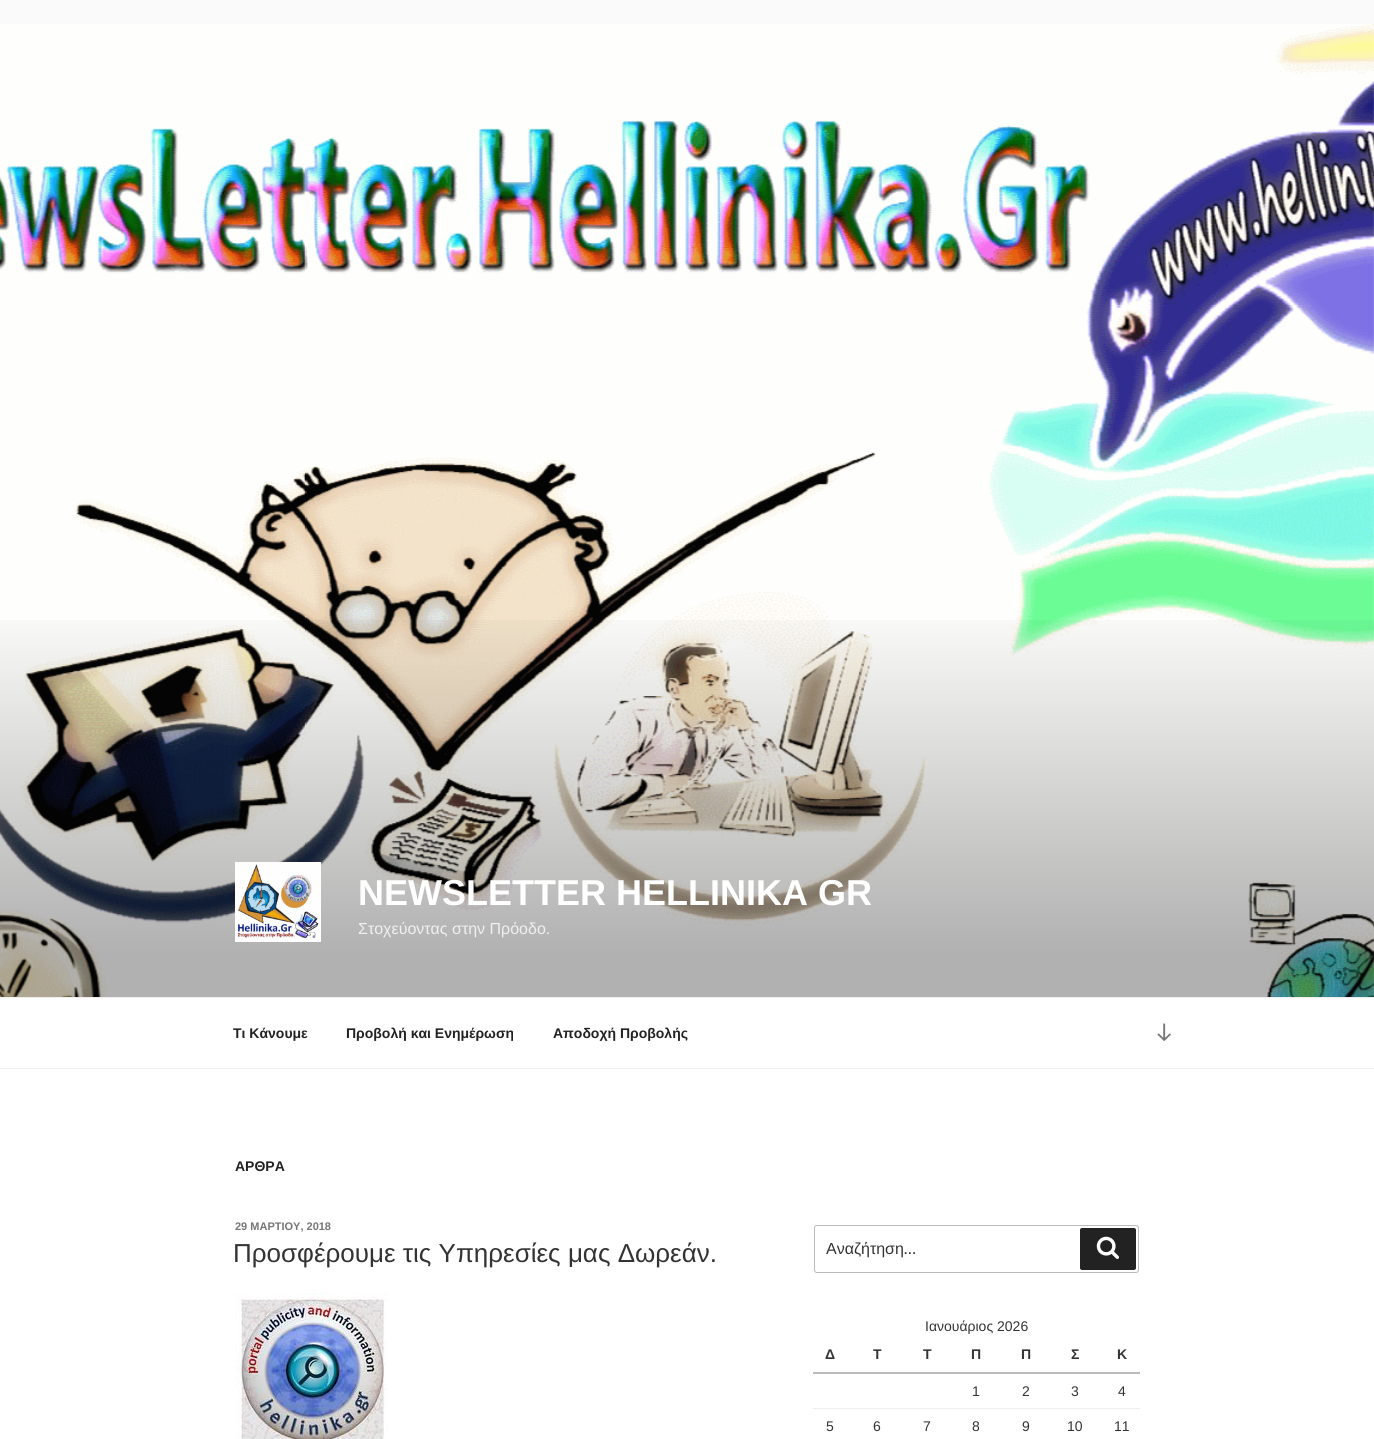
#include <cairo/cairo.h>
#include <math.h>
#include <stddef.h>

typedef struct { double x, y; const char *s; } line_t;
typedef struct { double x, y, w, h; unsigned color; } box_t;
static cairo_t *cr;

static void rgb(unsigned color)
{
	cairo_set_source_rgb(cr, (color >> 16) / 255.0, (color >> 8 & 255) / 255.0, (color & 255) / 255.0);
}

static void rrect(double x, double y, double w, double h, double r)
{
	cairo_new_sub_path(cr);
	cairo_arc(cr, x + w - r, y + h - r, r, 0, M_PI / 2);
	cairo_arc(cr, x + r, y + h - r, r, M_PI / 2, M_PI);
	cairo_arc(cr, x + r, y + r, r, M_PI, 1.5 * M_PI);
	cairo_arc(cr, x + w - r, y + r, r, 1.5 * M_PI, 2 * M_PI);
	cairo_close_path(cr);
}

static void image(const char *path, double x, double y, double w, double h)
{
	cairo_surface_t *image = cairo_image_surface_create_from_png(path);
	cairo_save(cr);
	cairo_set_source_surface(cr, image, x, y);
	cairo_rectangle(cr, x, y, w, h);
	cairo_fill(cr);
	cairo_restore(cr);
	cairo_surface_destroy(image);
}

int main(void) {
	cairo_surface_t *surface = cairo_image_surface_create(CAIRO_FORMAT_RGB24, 1374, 1439);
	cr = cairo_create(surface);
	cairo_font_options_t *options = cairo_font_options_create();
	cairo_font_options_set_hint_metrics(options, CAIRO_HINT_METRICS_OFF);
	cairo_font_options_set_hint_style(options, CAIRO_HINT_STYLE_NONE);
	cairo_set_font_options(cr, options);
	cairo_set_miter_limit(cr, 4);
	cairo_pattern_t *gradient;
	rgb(0xfafafa);
	cairo_paint(cr);
	image("img/1.png", 0, 24, 1374, 973);
	gradient = cairo_pattern_create_linear(687, 594, 687, 1069);
	cairo_pattern_add_color_stop_rgba(gradient, 0, 0, 0, 0, 0);
	cairo_pattern_add_color_stop_rgba(gradient, 0.75, 0, 0, 0, 0.3);
	cairo_pattern_add_color_stop_rgba(gradient, 1, 0, 0, 0, 0.3);
	cairo_set_source(cr, gradient);
	cairo_pattern_destroy(gradient);
	cairo_rectangle(cr, 0, 620, 1374, 377);
	cairo_fill(cr);
	image("img/2.png", 235, 862, 86, 80);
	{
		static const box_t items[] = {
			{0, 998, 1374, 70, 0xffffff},
			{0, 997, 1374, 1, 0xeeeeee},
			{0, 1068, 1374, 1, 0xeeeeee},
		};
		for (size_t i = 0; i < sizeof items / sizeof *items; i++) {
			rgb(items[i].color);
			cairo_rectangle(cr, items[i].x, items[i].y, items[i].w, items[i].h);
			cairo_fill(cr);
		}
	}
	image("img/3.png", 1157, 1023, 14, 18);
	rgb(0xffffff);
	cairo_rectangle(cr, 0, 1069, 1374, 370);
	cairo_fill(cr);
	image("img/4.png", 235, 1293, 152, 146);
	rrect(814.5, 1225.5, 324, 47, 2.5);
	rgb(0xbbbbbb);
	cairo_set_line_width(cr, 1);
	cairo_stroke(cr);
	rgb(0x222222);
	rrect(1080, 1228, 56, 42, 2);
	cairo_fill(cr);
	image("img/5.png", 1096, 1236, 23, 23);
	rgb(0xbbbbbb);
	cairo_rectangle(cr, 813, 1372, 327, 2);
	cairo_fill(cr);
	rgb(0xeeeeee);
	cairo_rectangle(cr, 813, 1408, 327, 1);
	cairo_fill(cr);
	cairo_select_font_face(cr, "Liberation Sans", CAIRO_FONT_SLANT_NORMAL, CAIRO_FONT_WEIGHT_BOLD);
	cairo_set_font_size(cr, 36);
	rgb(0xffffff);
	cairo_move_to(cr, 358, 905);
	cairo_show_text(cr, "NEWSLETTER HELLINIKA GR");
	cairo_select_font_face(cr, "Liberation Sans", CAIRO_FONT_SLANT_NORMAL, CAIRO_FONT_WEIGHT_NORMAL);
	cairo_set_font_size(cr, 16);
	rgb(0xf0f0f0);
	cairo_move_to(cr, 358, 934);
	cairo_show_text(cr, "Στοχεύοντας στην Πρόοδο.");
	cairo_select_font_face(cr, "Liberation Sans", CAIRO_FONT_SLANT_NORMAL, CAIRO_FONT_WEIGHT_BOLD);
	cairo_set_font_size(cr, 14);
	rgb(0x222222);
	{
		static const line_t items[] = {
			{233, 1038, "Τι Κάνουμε"},
			{346, 1038, "Προβολή και Ενημέρωση"},
			{553, 1038, "Αποδοχή Προβολής"},
			{235, 1171, "ΑΡΘΡΑ"},
		};
		for (size_t i = 0; i < sizeof items / sizeof *items; i++) {
			cairo_move_to(cr, items[i].x, items[i].y);
			cairo_show_text(cr, items[i].s);
		}
	}
	cairo_set_font_size(cr, 11);
	rgb(0x767676);
	cairo_move_to(cr, 235, 1230);
	cairo_show_text(cr, "29 ΜΑΡΤΙΟΥ, 2018");
	cairo_select_font_face(cr, "Liberation Sans", CAIRO_FONT_SLANT_NORMAL, CAIRO_FONT_WEIGHT_NORMAL);
	cairo_set_font_size(cr, 26);
	rgb(0x333333);
	cairo_move_to(cr, 233, 1262);
	cairo_show_text(cr, "Προσφέρουμε τις Υπηρεσίες μας Δωρεάν.");
	cairo_set_font_size(cr, 16);
	cairo_move_to(cr, 826, 1254);
	cairo_show_text(cr, "Αναζήτηση");
	cairo_select_font_face(cr, "Libre Franklin", CAIRO_FONT_SLANT_NORMAL, CAIRO_FONT_WEIGHT_NORMAL);
	cairo_move_to(cr, 904, 1254);
	cairo_show_text(cr, "…");
	cairo_select_font_face(cr, "Liberation Sans", CAIRO_FONT_SLANT_NORMAL, CAIRO_FONT_WEIGHT_NORMAL);
	cairo_set_font_size(cr, 14);
	cairo_move_to(cr, 925, 1331);
	cairo_show_text(cr, "Ιανουάριος 2026");
	cairo_select_font_face(cr, "Liberation Sans", CAIRO_FONT_SLANT_NORMAL, CAIRO_FONT_WEIGHT_BOLD);
	{
		static const line_t items[] = {
			{825, 1359, "Δ"},
			{873, 1359, "Τ"},
			{923, 1359, "Τ"},
			{971, 1359, "Π"},
			{1021, 1359, "Π"},
			{1071, 1359, "Σ"},
			{1117, 1359, "Κ"},
		};
		for (size_t i = 0; i < sizeof items / sizeof *items; i++) {
			cairo_move_to(cr, items[i].x, items[i].y);
			cairo_show_text(cr, items[i].s);
		}
	}
	cairo_select_font_face(cr, "Liberation Sans", CAIRO_FONT_SLANT_NORMAL, CAIRO_FONT_WEIGHT_NORMAL);
	{
		static const line_t items[] = {
			{972, 1396, "1"},
			{1022, 1396, "2"},
			{1071, 1396, "3"},
			{1118, 1396, "4"},
			{826, 1431, "5"},
			{873, 1431, "6"},
			{923, 1431, "7"},
			{972, 1431, "8"},
			{1022, 1431, "9"},
			{1067, 1431, "10"},
			{1114, 1431, "11"},
		};
		for (size_t i = 0; i < sizeof items / sizeof *items; i++) {
			cairo_move_to(cr, items[i].x, items[i].y);
			cairo_show_text(cr, items[i].s);
		}
	}
	cairo_surface_write_to_png(surface, "page.png");
	cairo_font_options_destroy(options);
	cairo_destroy(cr);
	cairo_surface_destroy(surface);
	return 0;
}
